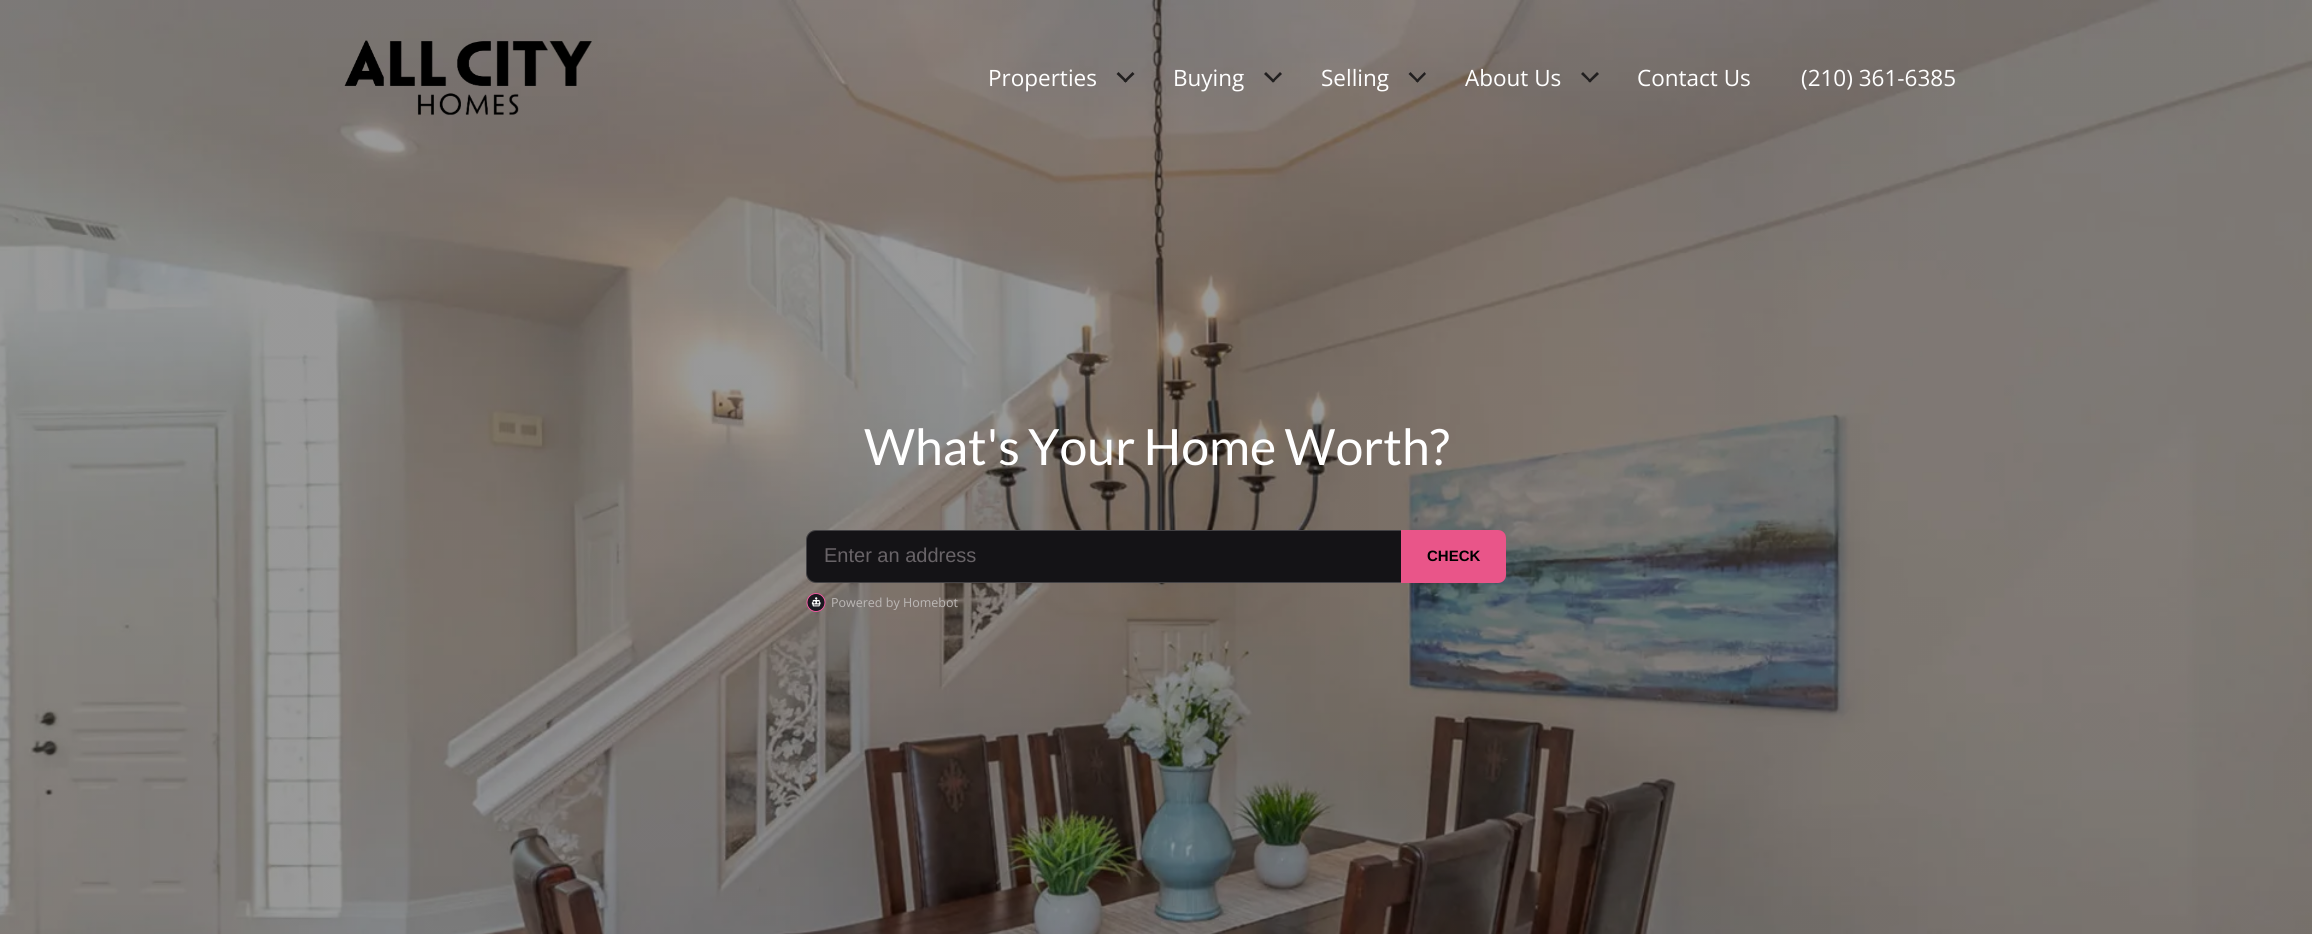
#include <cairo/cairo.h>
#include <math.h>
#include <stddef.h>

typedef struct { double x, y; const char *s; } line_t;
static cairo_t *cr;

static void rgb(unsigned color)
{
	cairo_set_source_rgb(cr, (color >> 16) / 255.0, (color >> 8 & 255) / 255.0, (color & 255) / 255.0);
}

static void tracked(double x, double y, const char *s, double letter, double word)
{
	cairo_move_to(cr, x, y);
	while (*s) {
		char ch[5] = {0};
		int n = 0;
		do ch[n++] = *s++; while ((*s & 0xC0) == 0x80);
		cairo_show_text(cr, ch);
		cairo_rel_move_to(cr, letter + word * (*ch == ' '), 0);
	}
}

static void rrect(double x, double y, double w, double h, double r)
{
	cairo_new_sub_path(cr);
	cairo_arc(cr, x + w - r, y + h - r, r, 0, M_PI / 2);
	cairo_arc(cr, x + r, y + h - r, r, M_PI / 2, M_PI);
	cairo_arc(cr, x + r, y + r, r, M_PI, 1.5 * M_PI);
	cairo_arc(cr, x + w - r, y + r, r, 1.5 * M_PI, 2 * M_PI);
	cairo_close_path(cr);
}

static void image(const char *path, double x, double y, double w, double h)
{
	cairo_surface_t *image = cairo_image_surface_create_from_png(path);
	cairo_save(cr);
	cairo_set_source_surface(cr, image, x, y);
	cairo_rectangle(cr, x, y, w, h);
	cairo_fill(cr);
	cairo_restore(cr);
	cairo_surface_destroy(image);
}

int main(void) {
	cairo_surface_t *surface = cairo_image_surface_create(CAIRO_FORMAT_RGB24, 2312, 934);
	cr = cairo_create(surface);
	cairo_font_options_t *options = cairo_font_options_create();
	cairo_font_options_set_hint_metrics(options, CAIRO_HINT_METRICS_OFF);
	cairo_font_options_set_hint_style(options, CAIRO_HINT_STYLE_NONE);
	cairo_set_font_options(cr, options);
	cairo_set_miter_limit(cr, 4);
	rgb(0xffffff);
	cairo_paint(cr);
	image("img/2.png", 0, 0, 2312, 934);
	image("img/1.png", 344, 40, 248, 75);
	rgb(0x211f1f);
	cairo_new_path(cr);
	cairo_move_to(cr, 1132.5, 72);
	cairo_line_to(cr, 1134.5, 74);
	cairo_line_to(cr, 1125.5, 82.5);
	cairo_line_to(cr, 1123.5, 81);
	cairo_close_path(cr);
	cairo_fill(cr);
	cairo_new_path(cr);
	cairo_move_to(cr, 1118.5, 72);
	cairo_line_to(cr, 1127.5, 81);
	cairo_line_to(cr, 1125.5, 82.5);
	cairo_line_to(cr, 1116.5, 74);
	cairo_close_path(cr);
	cairo_fill(cr);
	cairo_new_path(cr);
	cairo_move_to(cr, 1280, 72);
	cairo_line_to(cr, 1282, 74);
	cairo_line_to(cr, 1273, 82.5);
	cairo_line_to(cr, 1271.5, 81);
	cairo_close_path(cr);
	cairo_fill(cr);
	cairo_new_path(cr);
	cairo_move_to(cr, 1266, 72);
	cairo_line_to(cr, 1275, 81);
	cairo_line_to(cr, 1273, 82.5);
	cairo_line_to(cr, 1264, 74);
	cairo_close_path(cr);
	cairo_fill(cr);
	cairo_new_path(cr);
	cairo_move_to(cr, 1424.5, 72);
	cairo_line_to(cr, 1426, 74);
	cairo_line_to(cr, 1417.5, 82.5);
	cairo_line_to(cr, 1415.5, 81);
	cairo_close_path(cr);
	cairo_fill(cr);
	cairo_new_path(cr);
	cairo_move_to(cr, 1410.5, 72);
	cairo_line_to(cr, 1419, 81);
	cairo_line_to(cr, 1417.5, 82.5);
	cairo_line_to(cr, 1408.5, 74);
	cairo_close_path(cr);
	cairo_fill(cr);
	cairo_new_path(cr);
	cairo_move_to(cr, 1597, 72);
	cairo_line_to(cr, 1599, 74);
	cairo_line_to(cr, 1590, 82.5);
	cairo_line_to(cr, 1588, 81);
	cairo_close_path(cr);
	cairo_fill(cr);
	cairo_new_path(cr);
	cairo_move_to(cr, 1583, 72);
	cairo_line_to(cr, 1591.5, 81);
	cairo_line_to(cr, 1590, 82.5);
	cairo_line_to(cr, 1581, 74);
	cairo_close_path(cr);
	cairo_fill(cr);
	rgb(0x141316);
	rrect(806, 530, 700, 53, 10);
	cairo_fill(cr);
	rrect(806.5, 530.5, 699, 52, 9.5);
	cairo_set_source_rgba(cr, 1, 1, 1, 0.2);
	cairo_set_line_width(cr, 1);
	cairo_stroke(cr);
	rgb(0xe95589);
	cairo_new_path(cr);
	cairo_move_to(cr, 1401, 530);
	cairo_line_to(cr, 1498, 530);
	cairo_curve_to(cr, 1502.5, 530, 1506, 533.5, 1506, 538);
	cairo_line_to(cr, 1506, 575);
	cairo_curve_to(cr, 1506, 579.5, 1502.5, 583, 1498, 583);
	cairo_line_to(cr, 1401, 583);
	cairo_close_path(cr);
	cairo_fill(cr);
	image("img/3.png", 806, 593, 20, 19);
	cairo_select_font_face(cr, "Open Sans", CAIRO_FONT_SLANT_NORMAL, CAIRO_FONT_WEIGHT_NORMAL);
	cairo_set_font_size(cr, 22.5);
	rgb(0xffffff);
	{
		static const line_t items[] = {
			{988, 86, "Properties"},
			{1173, 86, "Buying"},
			{1321, 86, "Selling"},
			{1465, 86, "About Us"},
			{1637, 86, "Contact Us"},
			{1801, 86, "(210) 361-6385"},
		};
		for (size_t i = 0; i < sizeof items / sizeof *items; i++) {
			cairo_move_to(cr, items[i].x, items[i].y);
			cairo_show_text(cr, items[i].s);
		}
	}
	cairo_select_font_face(cr, "Lato", CAIRO_FONT_SLANT_NORMAL, CAIRO_FONT_WEIGHT_NORMAL);
	cairo_set_font_size(cr, 50);
	tracked(864, 465, "What's Your Home Worth?", 0, -1.5);
	cairo_select_font_face(cr, "Liberation Sans", CAIRO_FONT_SLANT_NORMAL, CAIRO_FONT_WEIGHT_NORMAL);
	cairo_set_font_size(cr, 20);
	rgb(0x686367);
	cairo_move_to(cr, 824, 562);
	cairo_show_text(cr, "Enter an address");
	cairo_select_font_face(cr, "Liberation Sans", CAIRO_FONT_SLANT_NORMAL, CAIRO_FONT_WEIGHT_BOLD);
	cairo_set_font_size(cr, 15);
	rgb(0x000000);
	cairo_move_to(cr, 1427, 561);
	cairo_show_text(cr, "CHECK");
	cairo_select_font_face(cr, "Open Sans", CAIRO_FONT_SLANT_NORMAL, CAIRO_FONT_WEIGHT_NORMAL);
	cairo_set_font_size(cr, 12.5);
	rgb(0xbcb8b6);
	cairo_move_to(cr, 831, 607);
	cairo_show_text(cr, "Powered by");
	cairo_move_to(cr, 903, 607);
	cairo_show_text(cr, "Homebot");
	cairo_surface_write_to_png(surface, "page.png");
	cairo_font_options_destroy(options);
	cairo_destroy(cr);
	cairo_surface_destroy(surface);
	return 0;
}
